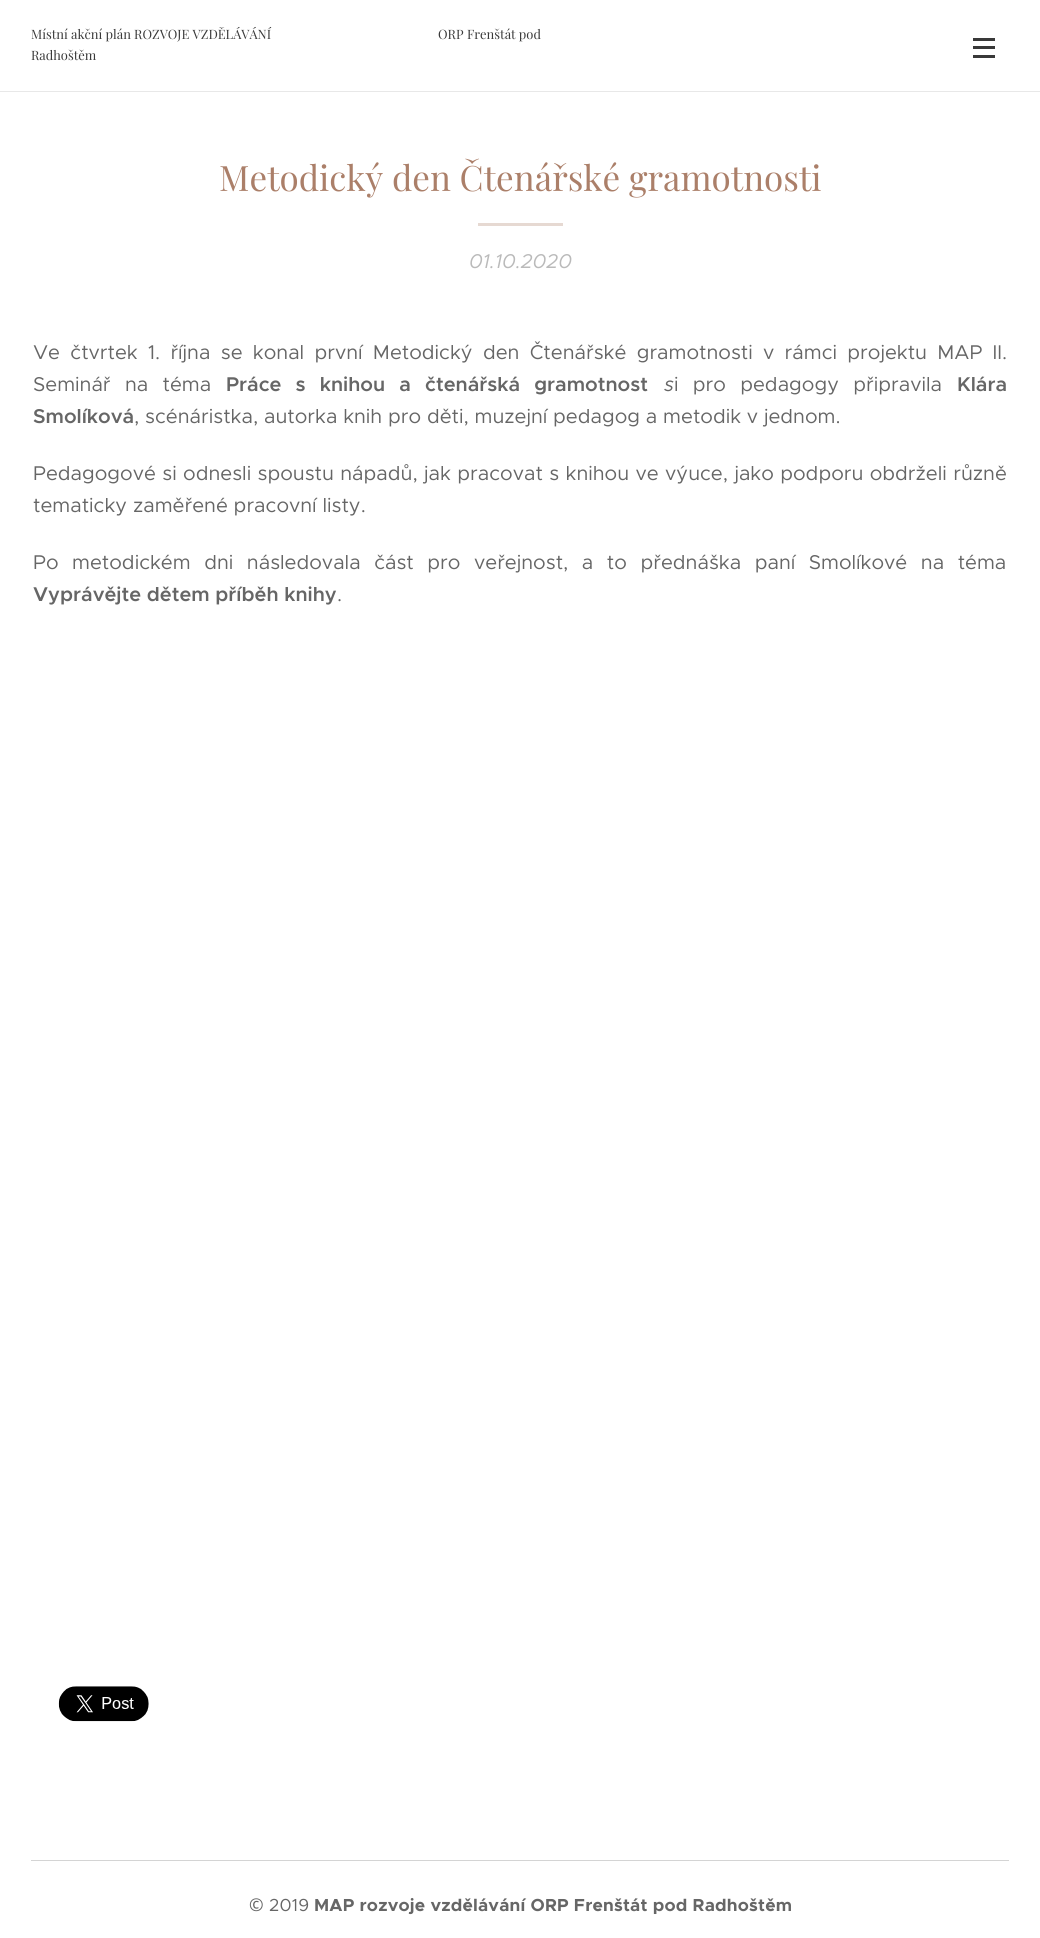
#include <cairo/cairo.h>
#include <math.h>
#include <stddef.h>

typedef struct { double x, y; const char *s; } line_t;
typedef struct { double x, y, w, h; unsigned color; } box_t;
static cairo_t *cr;

static void rgb(unsigned color)
{
	cairo_set_source_rgb(cr, (color >> 16) / 255.0, (color >> 8 & 255) / 255.0, (color & 255) / 255.0);
}

static void tracked(double x, double y, const char *s, double letter, double word)
{
	cairo_move_to(cr, x, y);
	while (*s) {
		char ch[5] = {0};
		int n = 0;
		do ch[n++] = *s++; while ((*s & 0xC0) == 0x80);
		cairo_show_text(cr, ch);
		cairo_rel_move_to(cr, letter + word * (*ch == ' '), 0);
	}
}

static void image(const char *path, double x, double y, double w, double h)
{
	cairo_surface_t *image = cairo_image_surface_create_from_png(path);
	cairo_save(cr);
	cairo_set_source_surface(cr, image, x, y);
	cairo_rectangle(cr, x, y, w, h);
	cairo_fill(cr);
	cairo_restore(cr);
	cairo_surface_destroy(image);
}

int main(void) {
	cairo_surface_t *surface = cairo_image_surface_create(CAIRO_FORMAT_RGB24, 1040, 1938);
	cr = cairo_create(surface);
	cairo_font_options_t *options = cairo_font_options_create();
	cairo_font_options_set_hint_metrics(options, CAIRO_HINT_METRICS_OFF);
	cairo_font_options_set_hint_style(options, CAIRO_HINT_STYLE_NONE);
	cairo_set_font_options(cr, options);
	cairo_set_miter_limit(cr, 4);
	rgb(0xffffff);
	cairo_paint(cr);
	{
		static const box_t items[] = {
			{973, 46, 22, 3, 0x393939},
			{973, 38, 22, 3, 0x393939},
			{973, 55, 22, 3, 0x393939},
			{0, 91, 1040, 1, 0xe8e8e8},
			{478, 223, 85, 3, 0xe6d9d2},
		};
		for (size_t i = 0; i < sizeof items / sizeof *items; i++) {
			rgb(items[i].color);
			cairo_rectangle(cr, items[i].x, items[i].y, items[i].w, items[i].h);
			cairo_fill(cr);
		}
	}
	image("img/1.png", 58, 1686, 91, 36);
	rgb(0xd4d4d4);
	cairo_rectangle(cr, 31, 1860, 978, 1);
	cairo_fill(cr);
	cairo_select_font_face(cr, "Playfair Display", CAIRO_FONT_SLANT_NORMAL, CAIRO_FONT_WEIGHT_NORMAL);
	cairo_set_font_size(cr, 12.9);
	rgb(0x393939);
	{
		static const line_t items[] = {
			{31, 39, "Místní akční plán ROZVOJE VZDĚLÁVÁNÍ                                                    ORP"},
			{467, 39, "Frenštát pod"},
			{31, 60, "Radhoštěm"},
		};
		for (size_t i = 0; i < sizeof items / sizeof *items; i++) {
			cairo_move_to(cr, items[i].x, items[i].y);
			cairo_show_text(cr, items[i].s);
		}
	}
	cairo_set_font_size(cr, 35);
	rgb(0xab7f69);
	cairo_move_to(cr, 219, 191);
	cairo_show_text(cr, "Metodický den Čtenářské gramotnosti");
	cairo_select_font_face(cr, "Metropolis", CAIRO_FONT_SLANT_ITALIC, CAIRO_FONT_WEIGHT_NORMAL);
	cairo_set_font_size(cr, 20);
	rgb(0xbababa);
	cairo_move_to(cr, 469, 268);
	cairo_show_text(cr, "01.10.2020");
	cairo_select_font_face(cr, "Metropolis", CAIRO_FONT_SLANT_NORMAL, CAIRO_FONT_WEIGHT_NORMAL);
	rgb(0x666666);
	tracked(33, 359, "Ve čtvrtek 1. října se konal první Metodický den Čtenářské gramotnosti v rámci projektu MAP II.", 0, 4.5);
	tracked(33, 391, "Seminář na téma", 0, 8.5);
	cairo_select_font_face(cr, "Metropolis SemiBold", CAIRO_FONT_SLANT_NORMAL, CAIRO_FONT_WEIGHT_NORMAL);
	tracked(226, 391, "Práce s knihou a čtenářská gramotnost", 0, 8.5);
	cairo_select_font_face(cr, "Metropolis", CAIRO_FONT_SLANT_ITALIC, CAIRO_FONT_WEIGHT_NORMAL);
	cairo_move_to(cr, 664, 391);
	cairo_show_text(cr, "s");
	cairo_select_font_face(cr, "Metropolis", CAIRO_FONT_SLANT_NORMAL, CAIRO_FONT_WEIGHT_NORMAL);
	tracked(674, 391, "i pro pedagogy připravila", 0, 8.5);
	cairo_select_font_face(cr, "Metropolis SemiBold", CAIRO_FONT_SLANT_NORMAL, CAIRO_FONT_WEIGHT_NORMAL);
	cairo_move_to(cr, 957, 391);
	cairo_show_text(cr, "Klára");
	cairo_move_to(cr, 33, 423);
	cairo_show_text(cr, "Smolíková");
	cairo_select_font_face(cr, "Metropolis", CAIRO_FONT_SLANT_NORMAL, CAIRO_FONT_WEIGHT_NORMAL);
	cairo_move_to(cr, 134, 423);
	cairo_show_text(cr, ", scénáristka, autorka knih pro děti, muzejní pedagog a metodik v jednom.");
	tracked(33, 480, "Pedagogové si odnesli spoustu nápadů, jak pracovat s knihou ve výuce, jako podporu obdrželi různě", 0, 0.6);
	cairo_move_to(cr, 33, 512);
	cairo_show_text(cr, "tematicky zaměřené pracovní listy.");
	tracked(33, 569, "Po metodickém dni následovala část pro veřejnost, a to přednáška paní Smolíkové na téma", 0, 7.75);
	cairo_select_font_face(cr, "Metropolis SemiBold", CAIRO_FONT_SLANT_NORMAL, CAIRO_FONT_WEIGHT_NORMAL);
	cairo_move_to(cr, 33, 601);
	cairo_show_text(cr, "Vyprávějte dětem příběh knihy");
	cairo_select_font_face(cr, "Metropolis", CAIRO_FONT_SLANT_NORMAL, CAIRO_FONT_WEIGHT_NORMAL);
	cairo_move_to(cr, 337, 601);
	cairo_show_text(cr, ".");
	cairo_select_font_face(cr, "Noto Sans", CAIRO_FONT_SLANT_NORMAL, CAIRO_FONT_WEIGHT_NORMAL);
	cairo_set_font_size(cr, 17.5);
	tracked(249, 1911, "©", 0.2, 0);
	cairo_select_font_face(cr, "Metropolis", CAIRO_FONT_SLANT_NORMAL, CAIRO_FONT_WEIGHT_NORMAL);
	tracked(269, 1911, "2019", 0.2, 0);
	cairo_select_font_face(cr, "Metropolis", CAIRO_FONT_SLANT_NORMAL, CAIRO_FONT_WEIGHT_BOLD);
	tracked(314, 1911, "MAP rozvoje vzdělávání ORP Frenštát pod Radhoštěm", 0.2, 0);
	cairo_surface_write_to_png(surface, "page.png");
	cairo_font_options_destroy(options);
	cairo_destroy(cr);
	cairo_surface_destroy(surface);
	return 0;
}
